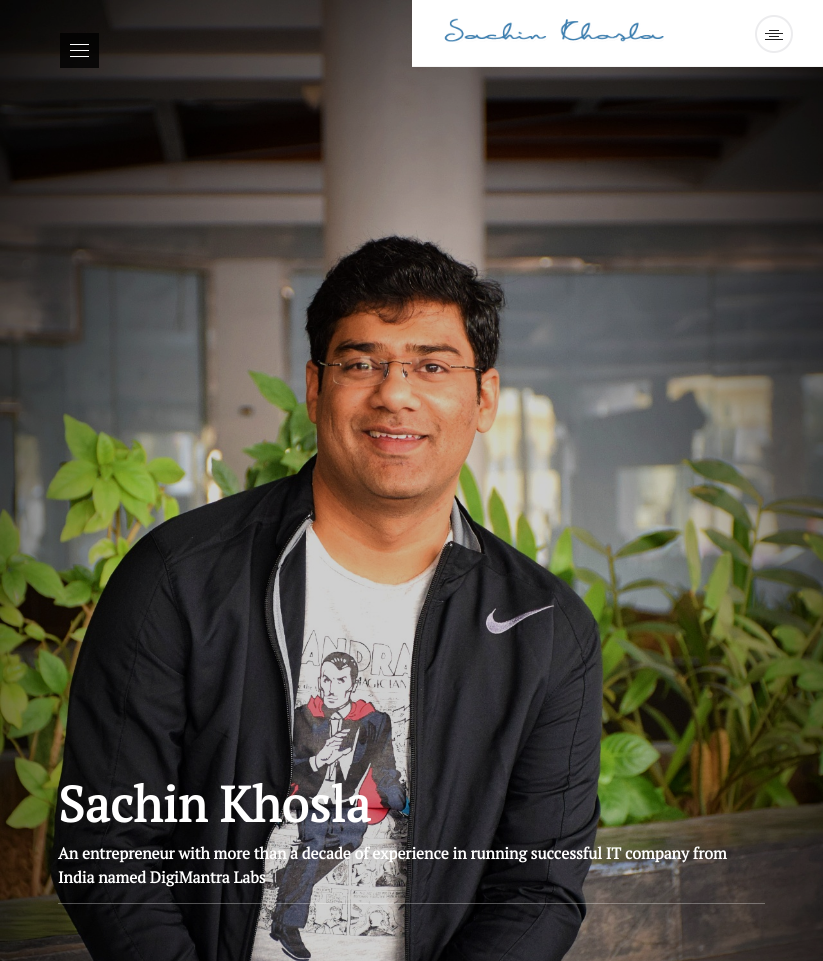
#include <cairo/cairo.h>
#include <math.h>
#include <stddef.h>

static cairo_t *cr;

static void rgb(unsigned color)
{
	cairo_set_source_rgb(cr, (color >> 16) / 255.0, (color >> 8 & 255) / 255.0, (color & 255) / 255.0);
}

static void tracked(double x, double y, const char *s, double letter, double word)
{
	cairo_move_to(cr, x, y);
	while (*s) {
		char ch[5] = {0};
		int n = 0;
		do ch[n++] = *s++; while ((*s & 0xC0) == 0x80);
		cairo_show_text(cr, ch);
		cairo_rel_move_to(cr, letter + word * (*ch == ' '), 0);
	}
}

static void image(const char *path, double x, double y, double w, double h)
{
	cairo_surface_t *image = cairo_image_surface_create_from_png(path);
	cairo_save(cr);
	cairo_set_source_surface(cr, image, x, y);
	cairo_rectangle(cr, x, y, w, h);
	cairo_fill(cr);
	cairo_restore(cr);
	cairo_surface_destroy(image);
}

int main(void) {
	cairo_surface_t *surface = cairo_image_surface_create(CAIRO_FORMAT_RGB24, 823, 961);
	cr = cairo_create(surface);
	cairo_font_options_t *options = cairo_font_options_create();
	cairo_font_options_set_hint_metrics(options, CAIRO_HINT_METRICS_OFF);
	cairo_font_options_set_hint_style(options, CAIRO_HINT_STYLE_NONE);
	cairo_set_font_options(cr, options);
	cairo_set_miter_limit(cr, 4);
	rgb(0xffffff);
	cairo_paint(cr);
	image("img/2.png", 0, 0, 823, 961);
	rgb(0xffffff);
	cairo_rectangle(cr, 412, 0, 411, 66);
	cairo_fill(cr);
	rgb(0xf5f5f5);
	cairo_rectangle(cr, 412, 66, 411, 1);
	cairo_fill(cr);
	image("img/1.png", 444, 18, 220, 25);
	cairo_arc(cr, 774, 34, 18, 0, 2 * M_PI);
	rgb(0xececee);
	cairo_stroke(cr);
	rgb(0x232323);
	cairo_rectangle(cr, 769, 30, 10, 1);
	cairo_fill(cr);
	cairo_rectangle(cr, 765, 33, 18, 1);
	cairo_fill(cr);
	cairo_rectangle(cr, 769, 36, 10, 1);
	cairo_fill(cr);
	cairo_rectangle(cr, 765, 39, 18, 1);
	cairo_fill(cr);
	cairo_set_source_rgba(cr, 0, 0, 0, 0.8);
	cairo_rectangle(cr, 60, 33, 39, 35);
	cairo_fill(cr);
	rgb(0xffffff);
	cairo_rectangle(cr, 70, 44, 19, 1);
	cairo_fill(cr);
	cairo_rectangle(cr, 70, 50, 19, 1);
	cairo_fill(cr);
	cairo_rectangle(cr, 70, 56, 19, 1);
	cairo_fill(cr);
	cairo_set_source_rgba(cr, 1, 1, 1, 0.3);
	cairo_rectangle(cr, 58, 903, 707, 1);
	cairo_fill(cr);
	cairo_select_font_face(cr, "PT Serif", CAIRO_FONT_SLANT_NORMAL, CAIRO_FONT_WEIGHT_BOLD);
	cairo_set_font_size(cr, 50);
	rgb(0xffffff);
	cairo_move_to(cr, 58, 822);
	cairo_show_text(cr, "Sachin Khosla");
	cairo_set_font_size(cr, 16);
	tracked(58, 859, "An entrepreneur with more than a decade of experience in running successful IT company from", -0.1, 0);
	tracked(58, 883, "India named DigiMantra Labs", -0.1, 0);
	cairo_surface_write_to_png(surface, "page.png");
	cairo_font_options_destroy(options);
	cairo_destroy(cr);
	cairo_surface_destroy(surface);
	return 0;
}
